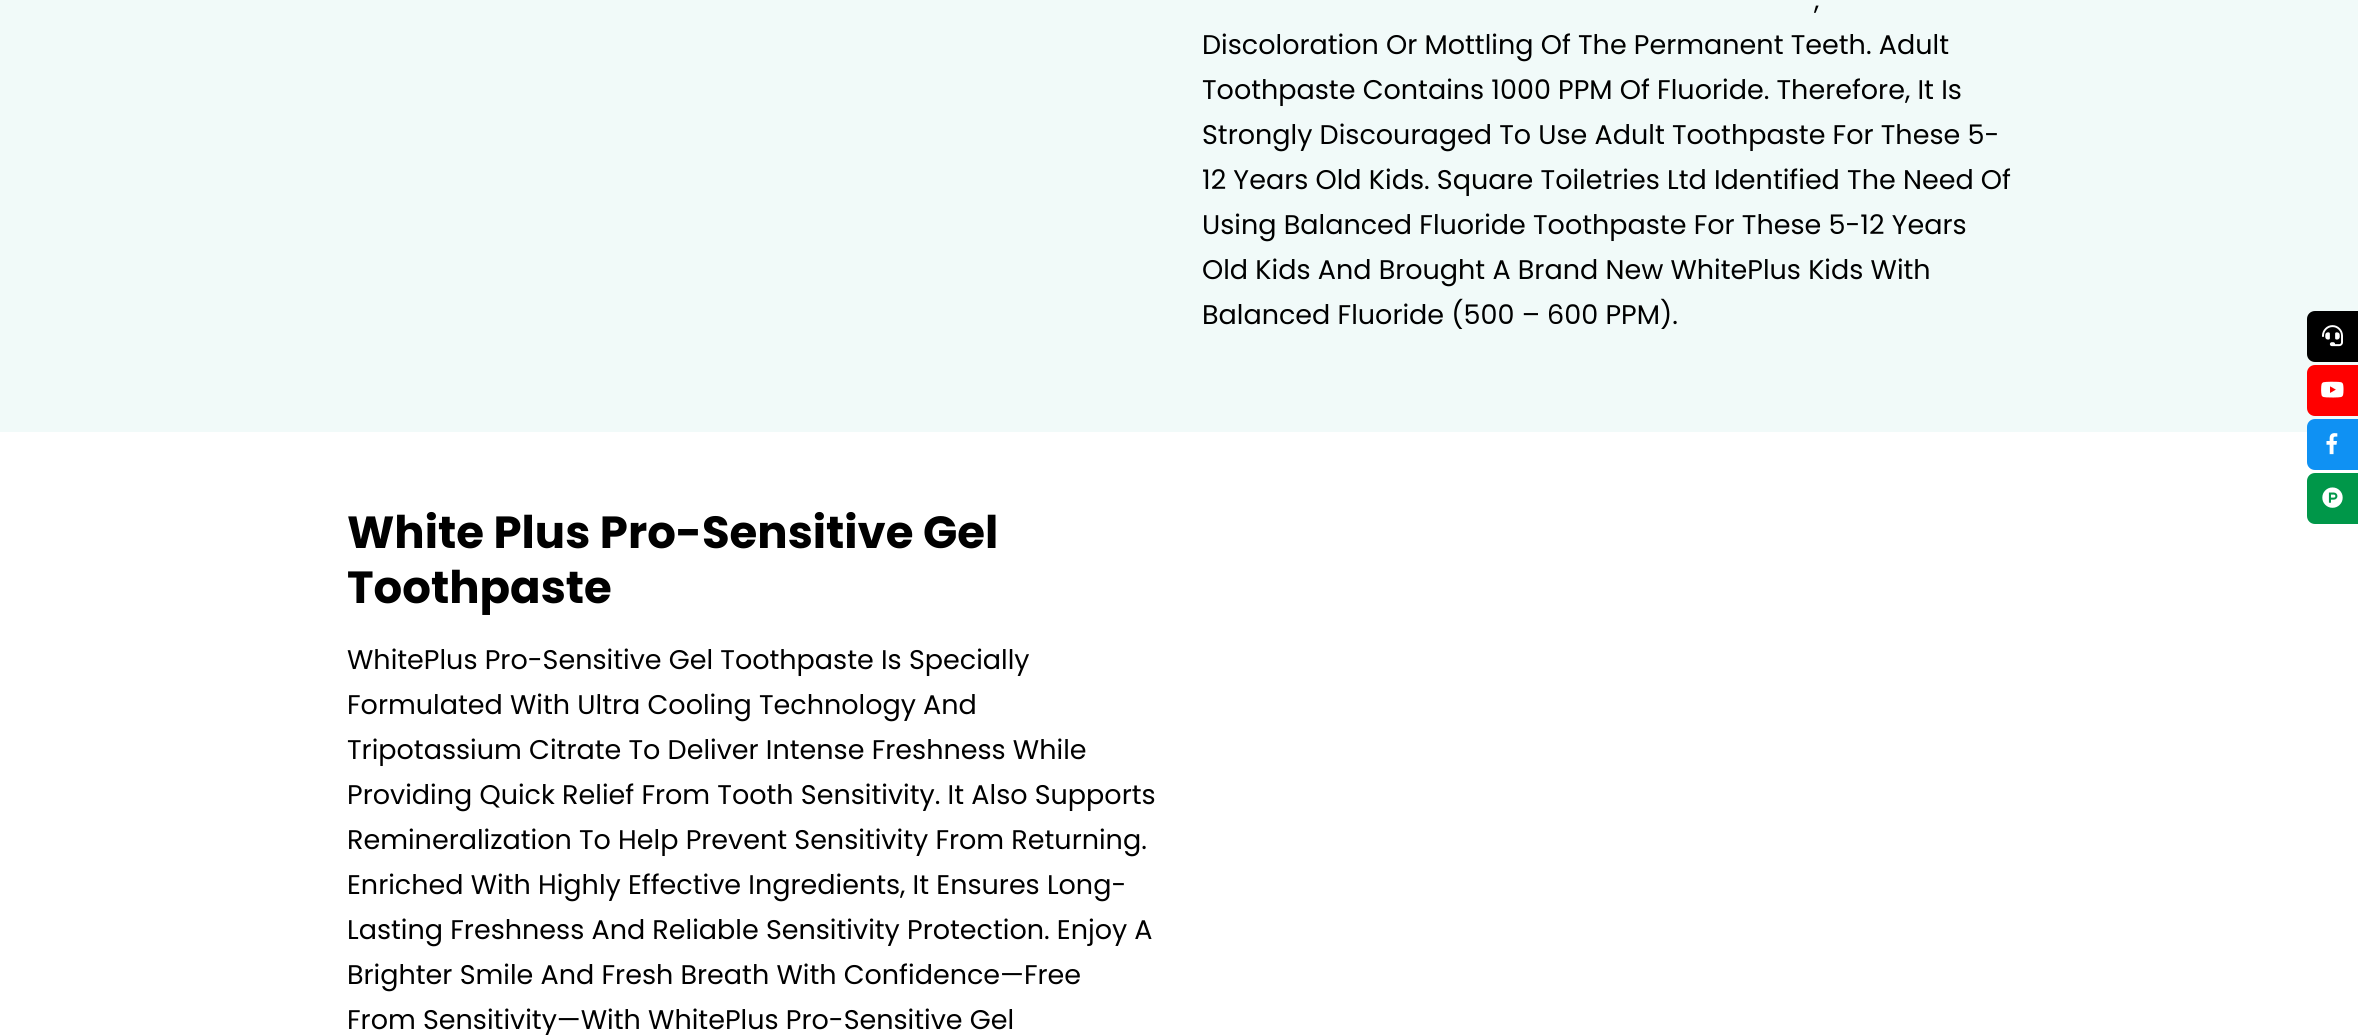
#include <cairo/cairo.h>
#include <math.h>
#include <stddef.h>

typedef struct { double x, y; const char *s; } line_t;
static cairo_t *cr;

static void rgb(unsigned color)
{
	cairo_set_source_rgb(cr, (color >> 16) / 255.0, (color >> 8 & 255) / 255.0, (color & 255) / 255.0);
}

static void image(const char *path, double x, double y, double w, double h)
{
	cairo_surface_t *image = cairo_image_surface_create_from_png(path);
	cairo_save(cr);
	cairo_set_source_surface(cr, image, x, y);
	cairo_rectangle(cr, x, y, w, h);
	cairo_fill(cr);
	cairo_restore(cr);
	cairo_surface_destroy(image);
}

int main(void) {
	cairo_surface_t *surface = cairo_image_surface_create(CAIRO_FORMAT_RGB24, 2358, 1035);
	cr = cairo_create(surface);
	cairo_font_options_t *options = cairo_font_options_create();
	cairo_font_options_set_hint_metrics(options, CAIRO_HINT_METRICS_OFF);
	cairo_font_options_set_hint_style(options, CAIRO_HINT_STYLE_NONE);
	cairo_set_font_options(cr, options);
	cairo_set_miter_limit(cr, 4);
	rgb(0xffffff);
	cairo_paint(cr);
	rgb(0xf1faf9);
	cairo_rectangle(cr, 0, 0, 2358, 432);
	cairo_fill(cr);
	rgb(0x000000);
	cairo_new_path(cr);
	cairo_move_to(cr, 2315, 311);
	cairo_line_to(cr, 2358, 311);
	cairo_line_to(cr, 2358, 362);
	cairo_line_to(cr, 2315, 362);
	cairo_curve_to(cr, 2310.5, 362, 2307, 358.5, 2307, 354);
	cairo_line_to(cr, 2307, 319);
	cairo_curve_to(cr, 2307, 314.5, 2310.5, 311, 2315, 311);
	cairo_close_path(cr);
	cairo_fill(cr);
	image("img/1.png", 2322, 325, 21, 22);
	rgb(0xff0000);
	cairo_new_path(cr);
	cairo_move_to(cr, 2315, 365);
	cairo_line_to(cr, 2358, 365);
	cairo_line_to(cr, 2358, 416);
	cairo_line_to(cr, 2315, 416);
	cairo_curve_to(cr, 2310.5, 416, 2307, 412.5, 2307, 408);
	cairo_line_to(cr, 2307, 373);
	cairo_curve_to(cr, 2307, 368.5, 2310.5, 365, 2315, 365);
	cairo_close_path(cr);
	cairo_fill(cr);
	image("img/2.png", 2321, 381, 23, 17);
	rgb(0x0f91f3);
	cairo_new_path(cr);
	cairo_move_to(cr, 2315, 419);
	cairo_line_to(cr, 2358, 419);
	cairo_line_to(cr, 2358, 470);
	cairo_line_to(cr, 2315, 470);
	cairo_curve_to(cr, 2310.5, 470, 2307, 466.5, 2307, 462);
	cairo_line_to(cr, 2307, 427);
	cairo_curve_to(cr, 2307, 422.5, 2310.5, 419, 2315, 419);
	cairo_close_path(cr);
	cairo_fill(cr);
	image("img/3.png", 2326, 433, 12, 22);
	rgb(0x009749);
	cairo_new_path(cr);
	cairo_move_to(cr, 2315, 473);
	cairo_line_to(cr, 2358, 473);
	cairo_line_to(cr, 2358, 524);
	cairo_line_to(cr, 2315, 524);
	cairo_curve_to(cr, 2310.5, 524, 2307, 520.5, 2307, 516);
	cairo_line_to(cr, 2307, 481);
	cairo_curve_to(cr, 2307, 476.5, 2310.5, 473, 2315, 473);
	cairo_close_path(cr);
	cairo_fill(cr);
	image("img/4.png", 2322, 487, 21, 21);
	cairo_select_font_face(cr, "Poppins", CAIRO_FONT_SLANT_NORMAL, CAIRO_FONT_WEIGHT_NORMAL);
	cairo_set_font_size(cr, 27);
	rgb(0x000000);
	{
		static const line_t items[] = {
			{1814, 9, ","},
			{1202, 54, "Discoloration Or Mottling Of The Permanent Teeth. Adult"},
			{1202, 99, "Toothpaste Contains 1000 PPM Of Fluoride. Therefore, It Is"},
			{1202, 144, "Strongly Discouraged To Use Adult Toothpaste For These 5-"},
			{1202, 189, "12 Years Old Kids. Square Toiletries Ltd Identified The Need Of"},
			{1202, 234, "Using Balanced Fluoride Toothpaste For These 5-12 Years"},
			{1202, 279, "Old Kids And Brought A Brand New WhitePlus Kids With"},
			{1202, 324, "Balanced Fluoride (500 – 600 PPM)."},
		};
		for (size_t i = 0; i < sizeof items / sizeof *items; i++) {
			cairo_move_to(cr, items[i].x, items[i].y);
			cairo_show_text(cr, items[i].s);
		}
	}
	cairo_select_font_face(cr, "Poppins", CAIRO_FONT_SLANT_NORMAL, CAIRO_FONT_WEIGHT_BOLD);
	cairo_set_font_size(cr, 45);
	cairo_move_to(cr, 347, 548);
	cairo_show_text(cr, "White Plus Pro-Sensitive Gel");
	cairo_move_to(cr, 347, 603);
	cairo_show_text(cr, "Toothpaste");
	cairo_select_font_face(cr, "Poppins", CAIRO_FONT_SLANT_NORMAL, CAIRO_FONT_WEIGHT_NORMAL);
	cairo_set_font_size(cr, 27);
	{
		static const line_t items[] = {
			{347, 669, "WhitePlus Pro-Sensitive Gel Toothpaste Is Specially"},
			{347, 714, "Formulated With Ultra Cooling Technology And"},
			{347, 759, "Tripotassium Citrate To Deliver Intense Freshness While"},
			{347, 804, "Providing Quick Relief From Tooth Sensitivity. It Also Supports"},
			{347, 849, "Remineralization To Help Prevent Sensitivity From Returning."},
			{347, 894, "Enriched With Highly Effective Ingredients, It Ensures Long-"},
			{347, 939, "Lasting Freshness And Reliable Sensitivity Protection. Enjoy A"},
			{347, 984, "Brighter Smile And Fresh Breath With Confidence—Free"},
			{347, 1029, "From Sensitivity—With WhitePlus Pro-Sensitive Gel"},
		};
		for (size_t i = 0; i < sizeof items / sizeof *items; i++) {
			cairo_move_to(cr, items[i].x, items[i].y);
			cairo_show_text(cr, items[i].s);
		}
	}
	cairo_surface_write_to_png(surface, "page.png");
	cairo_font_options_destroy(options);
	cairo_destroy(cr);
	cairo_surface_destroy(surface);
	return 0;
}
